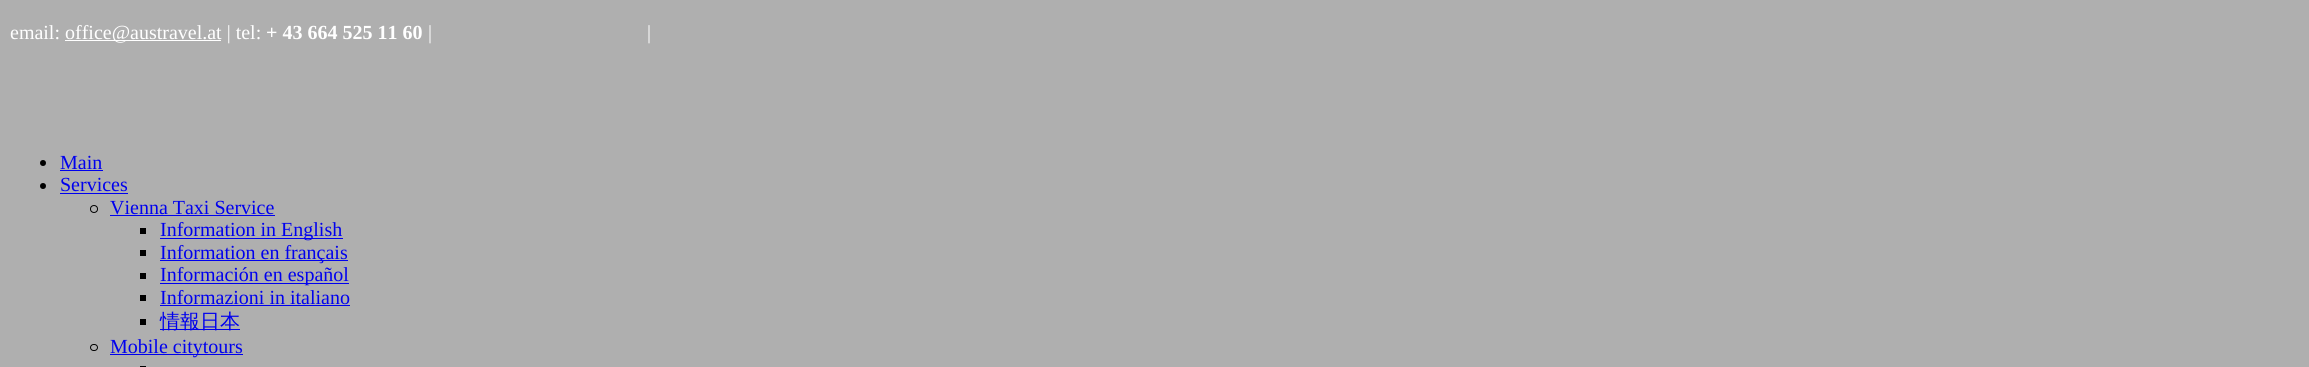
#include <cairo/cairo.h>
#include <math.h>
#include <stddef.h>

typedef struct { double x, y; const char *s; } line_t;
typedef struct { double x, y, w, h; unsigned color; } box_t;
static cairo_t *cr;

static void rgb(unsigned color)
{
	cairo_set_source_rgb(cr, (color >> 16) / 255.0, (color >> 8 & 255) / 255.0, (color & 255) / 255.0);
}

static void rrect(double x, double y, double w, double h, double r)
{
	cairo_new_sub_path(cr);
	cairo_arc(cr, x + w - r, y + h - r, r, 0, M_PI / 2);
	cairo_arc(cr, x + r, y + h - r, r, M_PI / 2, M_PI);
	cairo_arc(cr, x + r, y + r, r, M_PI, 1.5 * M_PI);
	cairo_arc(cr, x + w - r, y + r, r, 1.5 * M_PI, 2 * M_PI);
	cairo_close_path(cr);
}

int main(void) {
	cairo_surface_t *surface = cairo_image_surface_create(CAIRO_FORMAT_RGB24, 2309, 367);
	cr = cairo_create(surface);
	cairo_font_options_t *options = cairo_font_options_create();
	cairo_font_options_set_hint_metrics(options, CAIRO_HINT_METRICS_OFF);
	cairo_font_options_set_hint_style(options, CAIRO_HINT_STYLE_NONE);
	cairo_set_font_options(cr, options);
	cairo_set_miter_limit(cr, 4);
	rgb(0xafafaf);
	cairo_paint(cr);
	rgb(0xffffff);
	cairo_rectangle(cr, 65, 40, 156, 1);
	cairo_fill(cr);
	rgb(0x000000);
	cairo_arc(cr, 43, 163, 3, 0, 2 * M_PI);
	cairo_fill(cr);
	rgb(0x0000ee);
	cairo_rectangle(cr, 60, 170, 43, 1);
	cairo_fill(cr);
	rgb(0x000000);
	cairo_arc(cr, 43, 186, 3, 0, 2 * M_PI);
	cairo_fill(cr);
	rgb(0x0000ee);
	cairo_rectangle(cr, 60, 193, 68, 1);
	cairo_fill(cr);
	cairo_arc(cr, 94, 209, 3.5, 0, 2 * M_PI);
	rgb(0x000000);
	cairo_set_line_width(cr, 1);
	cairo_stroke(cr);
	{
		static const box_t items[] = {
			{110, 215, 165, 1, 0x0000ee},
			{140, 228, 6, 6, 0x000000},
			{160, 238, 183, 1, 0x0000ee},
			{140, 250, 6, 6, 0x000000},
			{160, 260, 188, 1, 0x0000ee},
			{140, 273, 6, 6, 0x000000},
			{160, 283, 189, 1, 0x0000ee},
			{140, 295, 6, 6, 0x000000},
			{160, 305, 190, 1, 0x0000ee},
			{140, 319, 6, 6, 0x000000},
			{160, 329, 80, 1, 0x0000ee},
		};
		for (size_t i = 0; i < sizeof items / sizeof *items; i++) {
			rgb(items[i].color);
			cairo_rectangle(cr, items[i].x, items[i].y, items[i].w, items[i].h);
			cairo_fill(cr);
		}
	}
	rrect(90.5, 344.5, 7, 6, 3);
	rgb(0x000000);
	cairo_stroke(cr);
	rgb(0x0000ee);
	cairo_rectangle(cr, 110, 354, 133, 1);
	cairo_fill(cr);
	rgb(0x000000);
	cairo_rectangle(cr, 140, 366, 6, 1);
	cairo_fill(cr);
	cairo_select_font_face(cr, "Liberation Serif", CAIRO_FONT_SLANT_NORMAL, CAIRO_FONT_WEIGHT_NORMAL);
	cairo_set_font_size(cr, 20);
	rgb(0xffffff);
	cairo_move_to(cr, 10, 39);
	cairo_show_text(cr, "email:");
	cairo_move_to(cr, 65, 39);
	cairo_show_text(cr, "office@austravel.at | tel:");
	cairo_select_font_face(cr, "Liberation Serif", CAIRO_FONT_SLANT_NORMAL, CAIRO_FONT_WEIGHT_BOLD);
	cairo_move_to(cr, 266, 39);
	cairo_show_text(cr, "+ 43 664 525 11 60");
	cairo_select_font_face(cr, "Liberation Serif", CAIRO_FONT_SLANT_NORMAL, CAIRO_FONT_WEIGHT_NORMAL);
	cairo_move_to(cr, 428, 39);
	cairo_show_text(cr, "|");
	cairo_move_to(cr, 647, 39);
	cairo_show_text(cr, "|");
	rgb(0x0000ee);
	{
		static const line_t items[] = {
			{60, 169, "Main"},
			{60, 191, "Services"},
			{110, 214, "Vienna Taxi Service"},
			{160, 236, "Information in English"},
			{160, 259, "Information en français"},
			{160, 281, "Información en español"},
			{160, 304, "Informazioni in italiano"},
		};
		for (size_t i = 0; i < sizeof items / sizeof *items; i++) {
			cairo_move_to(cr, items[i].x, items[i].y);
			cairo_show_text(cr, items[i].s);
		}
	}
	cairo_select_font_face(cr, "WenQuanYi Zen Hei Medium", CAIRO_FONT_SLANT_NORMAL, CAIRO_FONT_WEIGHT_NORMAL);
	cairo_move_to(cr, 160, 328);
	cairo_show_text(cr, "情報日本");
	cairo_select_font_face(cr, "Liberation Serif", CAIRO_FONT_SLANT_NORMAL, CAIRO_FONT_WEIGHT_NORMAL);
	cairo_move_to(cr, 110, 353);
	cairo_show_text(cr, "Mobile citytours");
	cairo_surface_write_to_png(surface, "page.png");
	cairo_font_options_destroy(options);
	cairo_destroy(cr);
	cairo_surface_destroy(surface);
	return 0;
}
